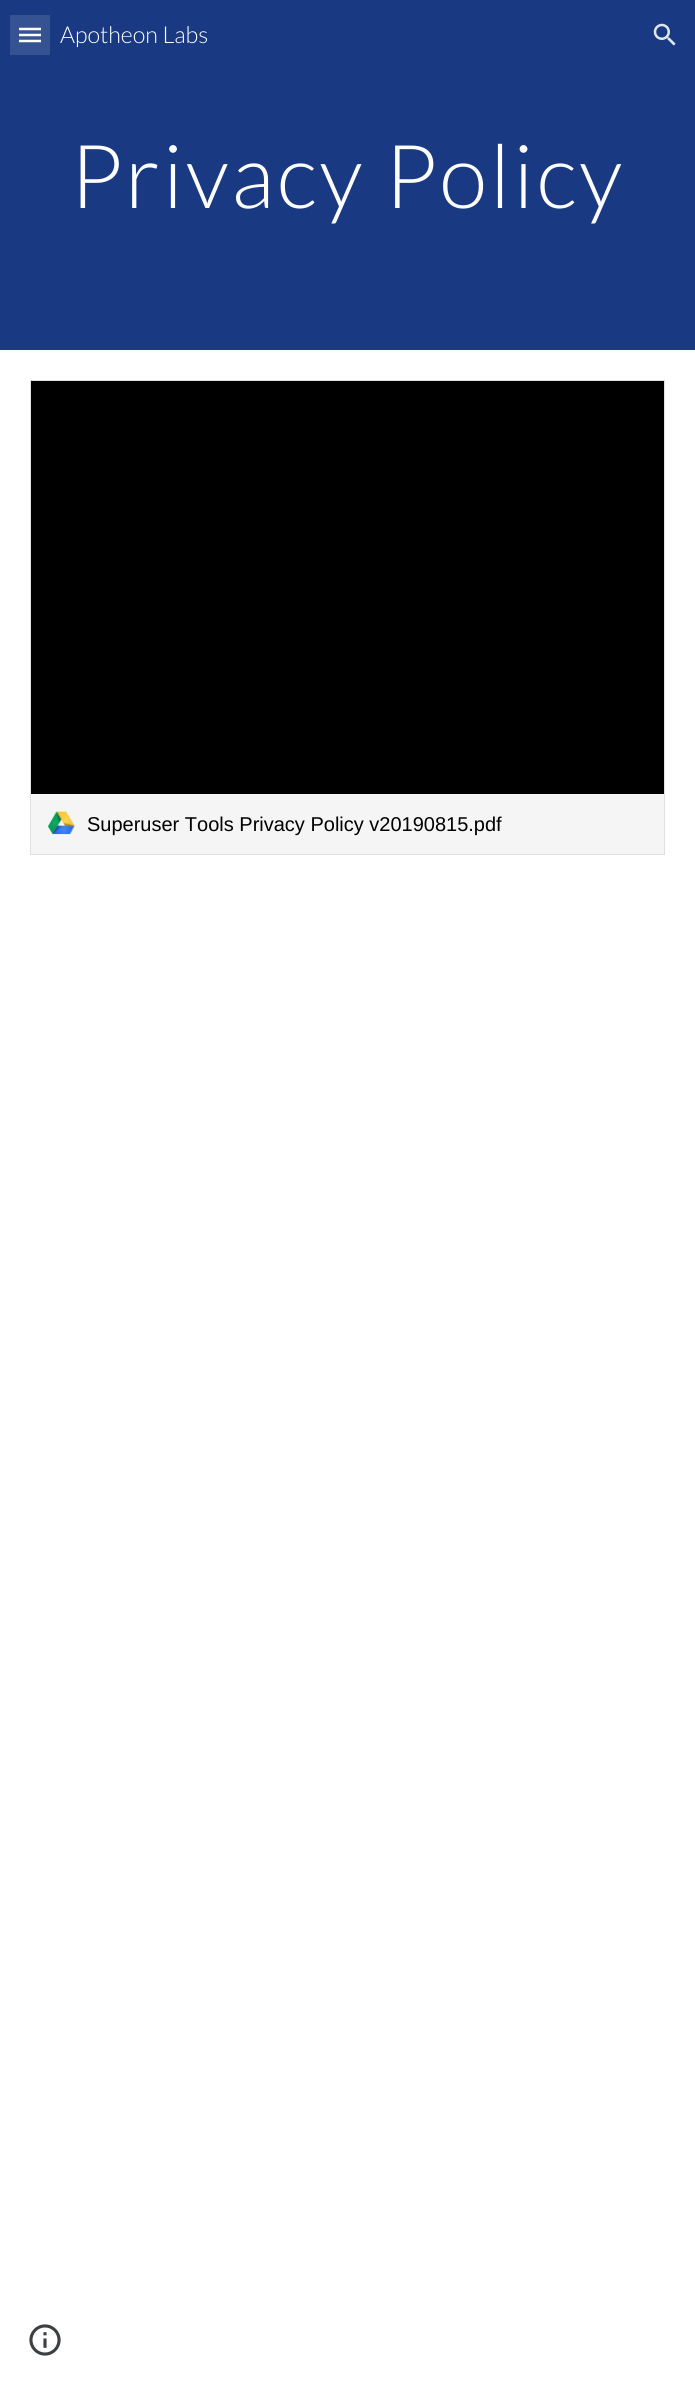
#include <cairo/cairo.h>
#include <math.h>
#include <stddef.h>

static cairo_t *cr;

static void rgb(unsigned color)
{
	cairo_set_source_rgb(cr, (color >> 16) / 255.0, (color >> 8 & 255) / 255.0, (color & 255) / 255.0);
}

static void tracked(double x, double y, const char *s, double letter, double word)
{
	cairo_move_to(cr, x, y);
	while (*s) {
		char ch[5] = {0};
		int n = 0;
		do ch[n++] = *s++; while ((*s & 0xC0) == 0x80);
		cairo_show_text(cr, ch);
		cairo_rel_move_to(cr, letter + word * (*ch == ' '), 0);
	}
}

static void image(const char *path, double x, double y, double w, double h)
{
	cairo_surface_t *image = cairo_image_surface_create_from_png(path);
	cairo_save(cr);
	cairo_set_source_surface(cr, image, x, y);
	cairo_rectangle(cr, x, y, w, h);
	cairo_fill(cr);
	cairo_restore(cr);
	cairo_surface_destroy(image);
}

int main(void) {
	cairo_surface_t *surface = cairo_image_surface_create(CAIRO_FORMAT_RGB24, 695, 2398);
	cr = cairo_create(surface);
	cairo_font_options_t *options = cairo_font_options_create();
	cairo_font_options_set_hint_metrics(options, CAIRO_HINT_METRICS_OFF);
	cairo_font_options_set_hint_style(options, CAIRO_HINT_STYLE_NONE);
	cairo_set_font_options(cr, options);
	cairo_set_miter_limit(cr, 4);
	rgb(0xffffff);
	cairo_paint(cr);
	rgb(0x193a83);
	cairo_rectangle(cr, 0, 0, 695, 350);
	cairo_fill(cr);
	rgb(0x355292);
	cairo_rectangle(cr, 10, 15, 40, 40);
	cairo_fill(cr);
	cairo_new_path(cr);
	cairo_move_to(cr, 19, 29);
	cairo_line_to(cr, 41, 29);
	cairo_move_to(cr, 19, 35);
	cairo_line_to(cr, 41, 35);
	cairo_move_to(cr, 19, 41);
	cairo_line_to(cr, 41, 41);
	rgb(0xffffff);
	cairo_set_line_width(cr, 2.5);
	cairo_stroke(cr);
	image("img/1.png", 653, 23, 23, 23);
	cairo_rectangle(cr, 30.5, 380.5, 634, 474);
	rgb(0xe0e0e0);
	cairo_set_line_width(cr, 1);
	cairo_stroke(cr);
	rgb(0x000000);
	cairo_rectangle(cr, 31, 381, 633, 413);
	cairo_fill(cr);
	rgb(0xf5f5f5);
	cairo_rectangle(cr, 31, 794, 633, 60);
	cairo_fill(cr);
	image("img/2.png", 48, 811, 27, 24);
	image("img/3.png", 29, 2324, 32, 32);
	cairo_select_font_face(cr, "Lato Light", CAIRO_FONT_SLANT_NORMAL, CAIRO_FONT_WEIGHT_NORMAL);
	cairo_set_font_size(cr, 23.25);
	rgb(0xffffff);
	cairo_move_to(cr, 60, 43);
	cairo_show_text(cr, "Apotheon Labs");
	cairo_set_font_size(cr, 88.25);
	tracked(70, 208, "Privacy Policy", 2.5, 0);
	cairo_select_font_face(cr, "Liberation Sans", CAIRO_FONT_SLANT_NORMAL, CAIRO_FONT_WEIGHT_NORMAL);
	cairo_set_font_size(cr, 20);
	rgb(0x000000);
	cairo_move_to(cr, 87, 831);
	cairo_show_text(cr, "Superuser Tools Privacy Policy v20190815.pdf");
	cairo_surface_write_to_png(surface, "page.png");
	cairo_font_options_destroy(options);
	cairo_destroy(cr);
	cairo_surface_destroy(surface);
	return 0;
}
